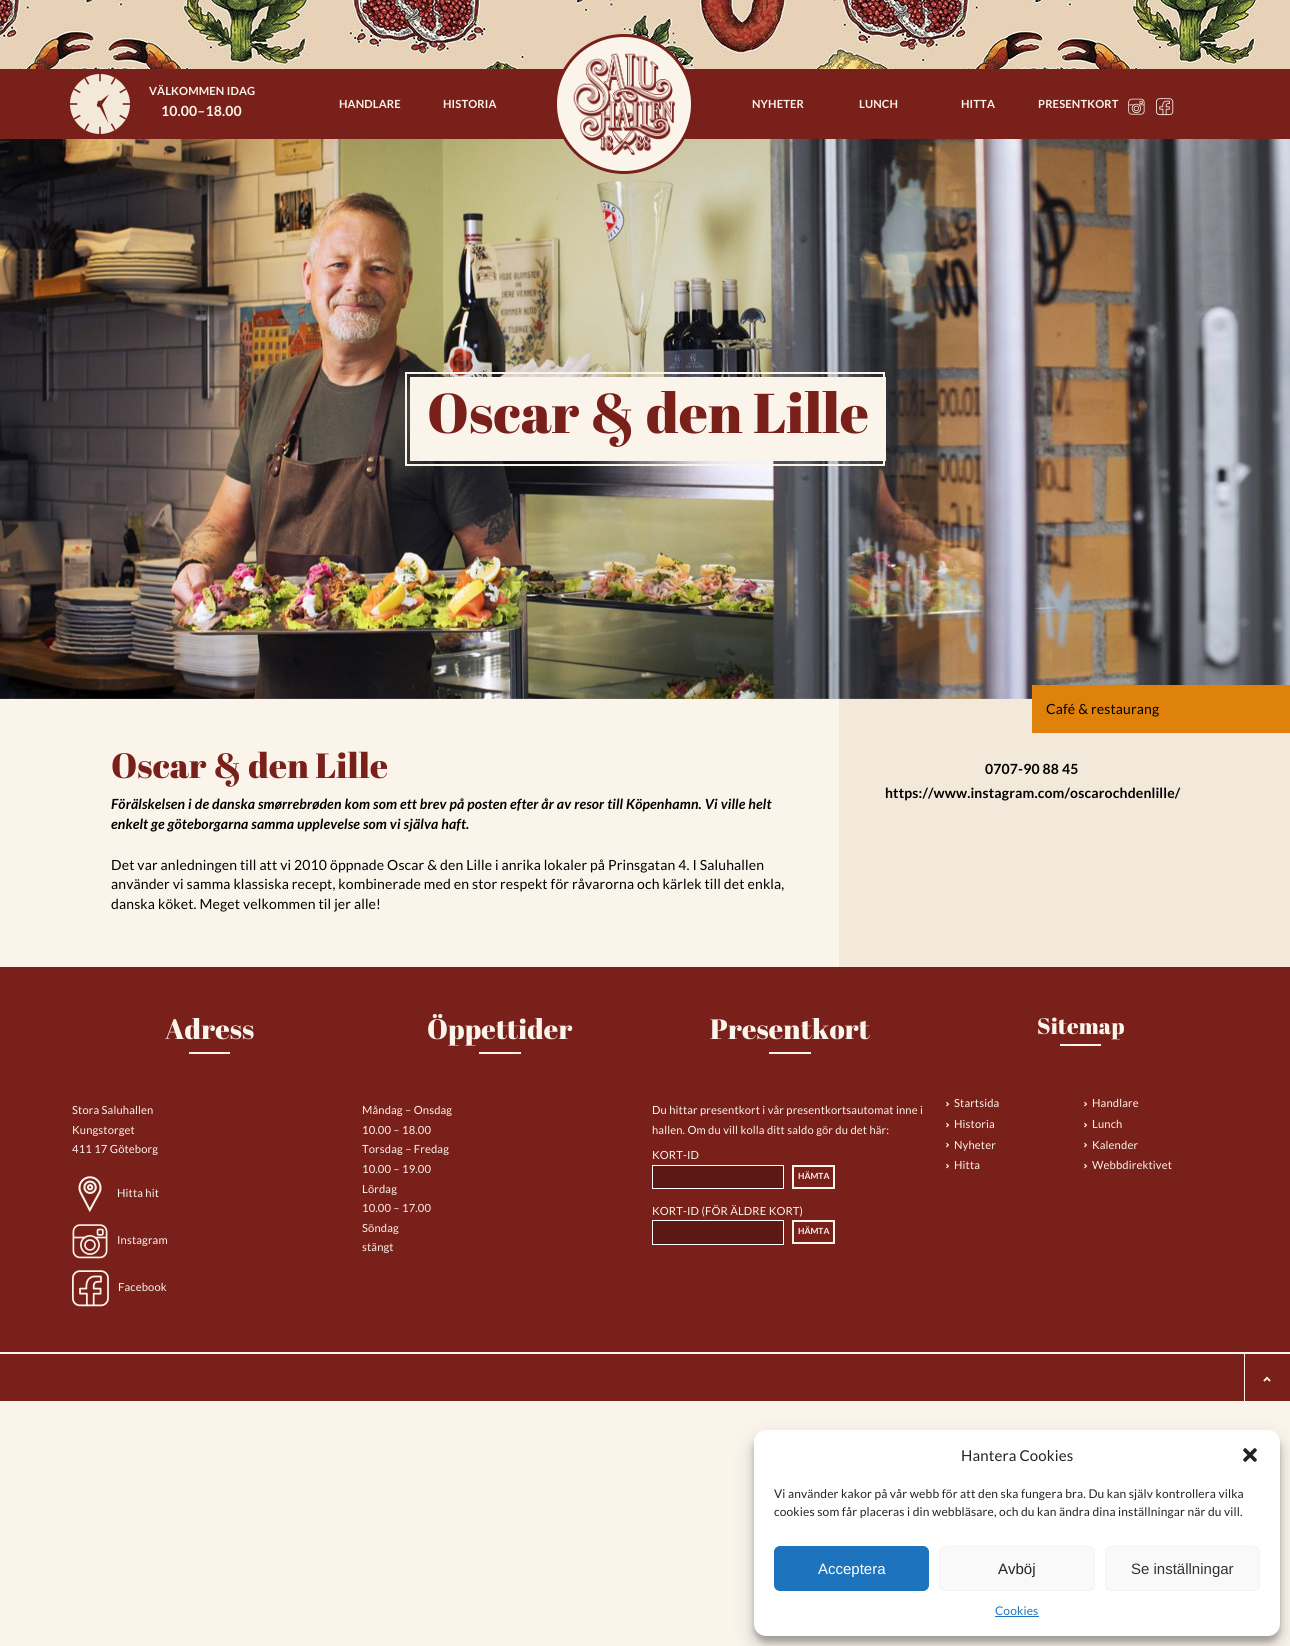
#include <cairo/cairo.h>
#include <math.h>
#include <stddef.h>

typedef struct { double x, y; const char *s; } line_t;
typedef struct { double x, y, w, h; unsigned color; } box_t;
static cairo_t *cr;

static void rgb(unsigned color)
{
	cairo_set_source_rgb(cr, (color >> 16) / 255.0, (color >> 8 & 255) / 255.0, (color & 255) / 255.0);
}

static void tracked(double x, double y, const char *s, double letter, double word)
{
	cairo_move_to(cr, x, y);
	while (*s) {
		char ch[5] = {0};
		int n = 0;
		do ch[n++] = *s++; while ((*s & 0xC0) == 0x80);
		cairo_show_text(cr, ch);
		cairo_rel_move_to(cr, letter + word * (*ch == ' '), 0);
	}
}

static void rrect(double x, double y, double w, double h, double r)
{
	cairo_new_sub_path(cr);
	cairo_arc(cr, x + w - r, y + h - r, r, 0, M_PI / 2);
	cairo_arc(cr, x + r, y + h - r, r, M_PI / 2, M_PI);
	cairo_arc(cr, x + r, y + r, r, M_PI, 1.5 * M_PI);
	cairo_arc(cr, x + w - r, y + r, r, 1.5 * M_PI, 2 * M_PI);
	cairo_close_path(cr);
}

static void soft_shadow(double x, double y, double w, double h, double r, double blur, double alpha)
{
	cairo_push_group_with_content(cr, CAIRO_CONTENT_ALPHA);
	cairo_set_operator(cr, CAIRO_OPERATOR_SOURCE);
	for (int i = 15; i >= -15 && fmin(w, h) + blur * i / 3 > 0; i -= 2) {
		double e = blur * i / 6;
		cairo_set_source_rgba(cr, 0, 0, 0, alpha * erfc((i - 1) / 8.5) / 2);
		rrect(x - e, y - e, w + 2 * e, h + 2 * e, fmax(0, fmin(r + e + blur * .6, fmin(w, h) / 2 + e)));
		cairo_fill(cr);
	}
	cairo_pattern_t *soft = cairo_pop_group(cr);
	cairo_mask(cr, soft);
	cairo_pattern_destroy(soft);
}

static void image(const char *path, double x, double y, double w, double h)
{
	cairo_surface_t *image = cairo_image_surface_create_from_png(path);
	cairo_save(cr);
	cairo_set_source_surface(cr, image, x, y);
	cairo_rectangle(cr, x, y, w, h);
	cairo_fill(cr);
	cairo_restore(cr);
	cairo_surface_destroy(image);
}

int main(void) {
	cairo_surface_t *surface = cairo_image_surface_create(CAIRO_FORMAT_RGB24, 1290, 1646);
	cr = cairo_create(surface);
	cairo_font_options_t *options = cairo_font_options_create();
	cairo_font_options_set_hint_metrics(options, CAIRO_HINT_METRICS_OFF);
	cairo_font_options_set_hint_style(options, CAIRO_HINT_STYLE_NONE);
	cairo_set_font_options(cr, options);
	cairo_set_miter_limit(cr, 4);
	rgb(0xfaf4eb);
	cairo_paint(cr);
	rgb(0x79201b);
	cairo_rectangle(cr, 0, 69, 1290, 70);
	cairo_fill(cr);
	image("img/1.png", 0, 0, 1290, 69);
	image("img/2.png", 70, 74, 60, 60);
	image("img/6.png", 0, 139, 1290, 560);
	rgb(0xfaf4eb);
	cairo_arc(cr, 624, 104, 68.5, 0, 2 * M_PI);
	cairo_fill_preserve(cr);
	rgb(0x79201b);
	cairo_set_line_width(cr, 3);
	cairo_stroke(cr);
	image("img/3.png", 573, 53, 102, 102);
	image("img/4.png", 1128, 98, 17, 17);
	image("img/5.png", 1156, 98, 18, 18);
	cairo_rectangle(cr, 406, 373, 478, 92);
	rgb(0xfaf4eb);
	cairo_set_line_width(cr, 2);
	cairo_stroke(cr);
	{
		static const box_t items[] = {
			{410, 377, 476, 84, 0xfaf4eb},
			{1225, 733, 65, 234, 0xf3e9db},
			{839, 699, 386, 268, 0xf3e9db},
			{1032, 685, 258, 48, 0xdf820b},
			{0, 967, 1290, 385, 0x79201b},
			{189, 1052, 41, 2, 0xfaf4eb},
		};
		for (size_t i = 0; i < sizeof items / sizeof *items; i++) {
			rgb(items[i].color);
			cairo_rectangle(cr, items[i].x, items[i].y, items[i].w, items[i].h);
			cairo_fill(cr);
		}
	}
	image("img/7.png", 78, 1176, 24, 37);
	image("img/8.png", 72, 1224, 36, 35);
	image("img/9.png", 72, 1270, 37, 37);
	cairo_rectangle(cr, 479, 1052, 42, 2);
	cairo_fill(cr);
	cairo_rectangle(cr, 769, 1052, 42, 2);
	cairo_fill(cr);
	rgb(0x5b1814);
	cairo_rectangle(cr, 652.5, 1165.5, 131, 23);
	cairo_fill_preserve(cr);
	rgb(0xffffff);
	cairo_set_line_width(cr, 1);
	cairo_stroke(cr);
	cairo_rectangle(cr, 793, 1166, 41, 22);
	rgb(0xfaf4eb);
	cairo_set_line_width(cr, 2);
	cairo_stroke(cr);
	rgb(0x5b1814);
	cairo_rectangle(cr, 652.5, 1220.5, 131, 24);
	cairo_fill_preserve(cr);
	rgb(0xffffff);
	cairo_set_line_width(cr, 1);
	cairo_stroke(cr);
	cairo_rectangle(cr, 793, 1221, 41, 22);
	rgb(0xfaf4eb);
	cairo_set_line_width(cr, 2);
	cairo_stroke(cr);
	cairo_rectangle(cr, 1060, 1044, 41, 2);
	cairo_fill(cr);
	image("img/10.png", 946, 1101, 4, 6);
	image("img/10.png", 1084, 1101, 4, 6);
	image("img/10.png", 946, 1122, 4, 6);
	image("img/10.png", 1084, 1122, 4, 6);
	image("img/10.png", 946, 1142, 4, 6);
	image("img/10.png", 1084, 1142, 4, 6);
	image("img/10.png", 946, 1163, 4, 6);
	image("img/10.png", 1084, 1163, 4, 6);
	rgb(0x79201b);
	cairo_rectangle(cr, 0, 1354, 1290, 47);
	cairo_fill(cr);
	rgb(0xfaf4eb);
	cairo_rectangle(cr, 1244, 1354, 1, 47);
	cairo_fill(cr);
	image("img/11.png", 1263, 1376, 8, 6);
	rgb(0x000000);
	soft_shadow(754, 1436, 526, 206, 12, 3, 0.23);
	soft_shadow(754, 1440, 526, 206, 12, 10, 0.19);
	rgb(0xffffff);
	rrect(754, 1430, 526, 206, 12);
	cairo_fill(cr);
	image("img/12.png", 1243, 1448, 14, 14);
	rgb(0x1e73be);
	rrect(774.5, 1546.5, 154, 44, 5.5);
	cairo_fill_preserve(cr);
	cairo_set_line_width(cr, 1);
	cairo_stroke(cr);
	rgb(0xf9f9f9);
	rrect(939.5, 1546.5, 155, 44, 5.5);
	cairo_fill_preserve(cr);
	rgb(0xf2f2f2);
	cairo_stroke(cr);
	rgb(0xf9f9f9);
	rrect(1105.5, 1546.5, 154, 44, 5.5);
	cairo_fill_preserve(cr);
	rgb(0xf2f2f2);
	cairo_stroke(cr);
	rgb(0x1e73be);
	cairo_rectangle(cr, 995, 1616, 44, 1);
	cairo_fill(cr);
	cairo_select_font_face(cr, "Lato", CAIRO_FONT_SLANT_NORMAL, CAIRO_FONT_WEIGHT_BOLD);
	cairo_set_font_size(cr, 11.2);
	rgb(0xfaf4eb);
	tracked(149, 95, "VÄLKOMMEN IDAG", 0.14, 0);
	cairo_set_font_size(cr, 14);
	tracked(161, 116, "10.00–18.00", 0.14, 0);
	cairo_set_font_size(cr, 11.2);
	{
		static const line_t items[] = {
			{339, 108, "HANDLARE"},
			{443, 108, "HISTORIA"},
			{752, 108, "NYHETER"},
			{859, 108, "LUNCH"},
			{961, 108, "HITTA"},
			{1038, 108, "PRESENTKORT"},
		};
		for (size_t i = 0; i < sizeof items / sizeof *items; i++) {
			tracked(items[i].x, items[i].y, items[i].s, 0.14, 0);
		}
	}
	cairo_select_font_face(cr, "Abril Fatface", CAIRO_FONT_SLANT_NORMAL, CAIRO_FONT_WEIGHT_NORMAL);
	cairo_set_font_size(cr, 56);
	rgb(0x79201b);
	tracked(427, 433, "Oscar & den Lille", 0.14, 0);
	cairo_set_font_size(cr, 35);
	tracked(111, 778, "Oscar & den Lille", 0.14, 0);
	cairo_select_font_face(cr, "Lato", CAIRO_FONT_SLANT_ITALIC, CAIRO_FONT_WEIGHT_BOLD);
	cairo_set_font_size(cr, 14);
	rgb(0x000000);
	tracked(111, 809, "Förälskelsen i de danska smørrebrøden kom som ett brev på posten efter år av resor till Köpenhamn. Vi ville helt", 0.14, 0);
	tracked(111, 829, "enkelt ge göteborgarna samma upplevelse som vi själva haft.", 0.14, 0);
	cairo_select_font_face(cr, "Lato", CAIRO_FONT_SLANT_NORMAL, CAIRO_FONT_WEIGHT_NORMAL);
	{
		static const line_t items[] = {
			{111, 870, "Det var anledningen till att vi 2010 öppnade Oscar & den Lille i anrika lokaler på Prinsgatan 4. I Saluhallen"},
			{111, 889, "använder vi samma klassiska recept, kombinerade med en stor respekt för råvarorna och kärlek till det enkla,"},
			{111, 909, "danska köket. Meget velkommen til jer alle!"},
			{1046, 714, "Café & restaurang"},
		};
		for (size_t i = 0; i < sizeof items / sizeof *items; i++) {
			tracked(items[i].x, items[i].y, items[i].s, 0.14, 0);
		}
	}
	cairo_select_font_face(cr, "Lato", CAIRO_FONT_SLANT_NORMAL, CAIRO_FONT_WEIGHT_BOLD);
	tracked(985, 774, "0707-90 88 45", 0.14, 0);
	tracked(885, 798, "https://www.instagram.com/oscarochdenlille/", 0.14, 0);
	cairo_select_font_face(cr, "Abril Fatface", CAIRO_FONT_SLANT_NORMAL, CAIRO_FONT_WEIGHT_NORMAL);
	cairo_set_font_size(cr, 28);
	rgb(0xfaf4eb);
	tracked(165, 1039, "Adress", 0.14, 0);
	cairo_select_font_face(cr, "Lato", CAIRO_FONT_SLANT_NORMAL, CAIRO_FONT_WEIGHT_NORMAL);
	cairo_set_font_size(cr, 11.2);
	{
		static const line_t items[] = {
			{72, 1114, "Stora Saluhallen"},
			{72, 1134, "Kungstorget"},
			{72, 1153, "411 17 Göteborg"},
			{117, 1197, "Hitta hit"},
			{117, 1244, "Instagram"},
			{118, 1291, "Facebook"},
		};
		for (size_t i = 0; i < sizeof items / sizeof *items; i++) {
			tracked(items[i].x, items[i].y, items[i].s, 0.14, 0);
		}
	}
	cairo_select_font_face(cr, "Abril Fatface", CAIRO_FONT_SLANT_NORMAL, CAIRO_FONT_WEIGHT_NORMAL);
	cairo_set_font_size(cr, 28);
	tracked(427, 1039, "Öppettider", 0.14, 0);
	cairo_select_font_face(cr, "Lato", CAIRO_FONT_SLANT_NORMAL, CAIRO_FONT_WEIGHT_NORMAL);
	cairo_set_font_size(cr, 11.2);
	{
		static const line_t items[] = {
			{362, 1114, "Måndag – Onsdag"},
			{362, 1134, "10.00 – 18.00"},
			{362, 1153, "Torsdag – Fredag"},
			{362, 1173, "10.00 – 19.00"},
			{362, 1193, "Lördag"},
			{362, 1212, "10.00 – 17.00"},
			{362, 1232, "Söndag"},
			{362, 1251, "stängt"},
		};
		for (size_t i = 0; i < sizeof items / sizeof *items; i++) {
			tracked(items[i].x, items[i].y, items[i].s, 0.14, 0);
		}
	}
	cairo_select_font_face(cr, "Abril Fatface", CAIRO_FONT_SLANT_NORMAL, CAIRO_FONT_WEIGHT_NORMAL);
	cairo_set_font_size(cr, 28);
	tracked(710, 1039, "Presentkort", 0.14, 0);
	cairo_select_font_face(cr, "Lato", CAIRO_FONT_SLANT_NORMAL, CAIRO_FONT_WEIGHT_NORMAL);
	cairo_set_font_size(cr, 11.2);
	{
		static const line_t items[] = {
			{652, 1114, "Du hittar presentkort i vår presentkortsautomat inne i"},
			{652, 1134, "hallen. Om du vill kolla ditt saldo gör du det här:"},
			{652, 1159, "KORT-ID"},
		};
		for (size_t i = 0; i < sizeof items / sizeof *items; i++) {
			tracked(items[i].x, items[i].y, items[i].s, 0.14, 0);
		}
	}
	cairo_select_font_face(cr, "Lato", CAIRO_FONT_SLANT_NORMAL, CAIRO_FONT_WEIGHT_BOLD);
	cairo_set_font_size(cr, 8.5);
	cairo_move_to(cr, 798, 1179);
	cairo_show_text(cr, "HÄMTA");
	cairo_select_font_face(cr, "Lato", CAIRO_FONT_SLANT_NORMAL, CAIRO_FONT_WEIGHT_NORMAL);
	cairo_set_font_size(cr, 11.2);
	tracked(652, 1215, "KORT-ID (FÖR ÄLDRE KORT)", 0.14, 0);
	cairo_select_font_face(cr, "Lato", CAIRO_FONT_SLANT_NORMAL, CAIRO_FONT_WEIGHT_BOLD);
	cairo_set_font_size(cr, 8.5);
	cairo_move_to(cr, 798, 1234);
	cairo_show_text(cr, "HÄMTA");
	cairo_select_font_face(cr, "Abril Fatface", CAIRO_FONT_SLANT_NORMAL, CAIRO_FONT_WEIGHT_NORMAL);
	cairo_set_font_size(cr, 22.5);
	tracked(1037, 1034, "Sitemap", 0.14, 0);
	cairo_select_font_face(cr, "Lato", CAIRO_FONT_SLANT_NORMAL, CAIRO_FONT_WEIGHT_NORMAL);
	cairo_set_font_size(cr, 11.2);
	{
		static const line_t items[] = {
			{954, 1107, "Startsida"},
			{1092, 1107, "Handlare"},
			{954, 1128, "Historia"},
			{1092, 1128, "Lunch"},
			{954, 1149, "Nyheter"},
			{1092, 1149, "Kalender"},
			{954, 1169, "Hitta"},
			{1092, 1169, "Webbdirektivet"},
		};
		for (size_t i = 0; i < sizeof items / sizeof *items; i++) {
			tracked(items[i].x, items[i].y, items[i].s, 0.14, 0);
		}
	}
	cairo_set_font_size(cr, 15);
	rgb(0x222222);
	tracked(961, 1461, "Hantera Cookies", 0.14, 0);
	cairo_set_font_size(cr, 12);
	tracked(774, 1498, "Vi använder kakor på vår webb för att den ska fungera bra. Du kan själv kontrollera vilka", 0.14, 0);
	tracked(774, 1516, "cookies som får placeras i din webbläsare, och du kan ändra dina inställningar när du vill.", 0.14, 0);
	cairo_select_font_face(cr, "Liberation Sans", CAIRO_FONT_SLANT_NORMAL, CAIRO_FONT_WEIGHT_NORMAL);
	cairo_set_font_size(cr, 15);
	rgb(0xffffff);
	cairo_move_to(cr, 818, 1574);
	cairo_show_text(cr, "Acceptera");
	rgb(0x222222);
	cairo_move_to(cr, 998, 1574);
	cairo_show_text(cr, "Avböj");
	rgb(0x333333);
	cairo_move_to(cr, 1131, 1574);
	cairo_show_text(cr, "Se inställningar");
	cairo_select_font_face(cr, "Lato", CAIRO_FONT_SLANT_NORMAL, CAIRO_FONT_WEIGHT_NORMAL);
	cairo_set_font_size(cr, 12);
	rgb(0x1e73be);
	tracked(995, 1615, "Cookies", 0.14, 0);
	cairo_surface_write_to_png(surface, "page.png");
	cairo_font_options_destroy(options);
	cairo_destroy(cr);
	cairo_surface_destroy(surface);
	return 0;
}
